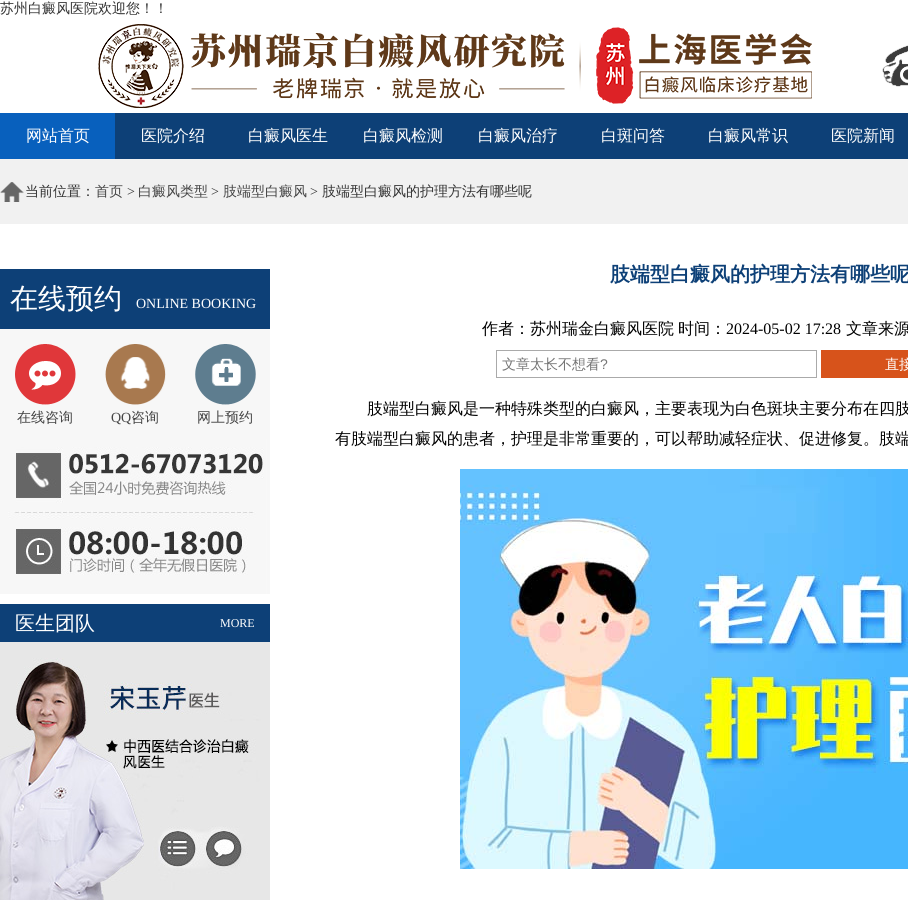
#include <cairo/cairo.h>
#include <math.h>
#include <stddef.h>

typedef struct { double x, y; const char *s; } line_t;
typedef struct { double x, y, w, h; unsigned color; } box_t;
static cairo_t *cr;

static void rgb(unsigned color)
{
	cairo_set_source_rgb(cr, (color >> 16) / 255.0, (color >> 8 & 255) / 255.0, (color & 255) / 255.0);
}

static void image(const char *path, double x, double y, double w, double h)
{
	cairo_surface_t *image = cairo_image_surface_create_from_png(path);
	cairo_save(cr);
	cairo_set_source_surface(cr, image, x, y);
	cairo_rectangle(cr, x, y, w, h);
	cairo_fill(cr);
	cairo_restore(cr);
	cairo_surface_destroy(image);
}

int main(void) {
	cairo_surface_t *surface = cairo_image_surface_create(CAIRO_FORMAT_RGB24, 908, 900);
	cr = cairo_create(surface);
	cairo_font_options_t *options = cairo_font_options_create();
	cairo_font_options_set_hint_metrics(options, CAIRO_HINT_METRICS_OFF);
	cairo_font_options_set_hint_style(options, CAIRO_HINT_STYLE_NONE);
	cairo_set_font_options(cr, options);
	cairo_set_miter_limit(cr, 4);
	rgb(0xffffff);
	cairo_paint(cr);
	image("img/1.png", 98, 24, 810, 84);
	{
		static const box_t items[] = {
			{115, 113, 793, 46, 0x0d4077},
			{0, 113, 115, 46, 0x0860bd},
			{0, 159, 908, 65, 0xf1f1f1},
		};
		for (size_t i = 0; i < sizeof items / sizeof *items; i++) {
			rgb(items[i].color);
			cairo_rectangle(cr, items[i].x, items[i].y, items[i].w, items[i].h);
			cairo_fill(cr);
		}
	}
	image("img/2.png", 0, 182, 24, 20);
	rgb(0x0d4077);
	cairo_rectangle(cr, 0, 269, 270, 60);
	cairo_fill(cr);
	rgb(0xf7f7f7);
	cairo_rectangle(cr, 0, 329, 270, 110);
	cairo_fill(cr);
	image("img/3.png", 15, 344, 61, 61);
	image("img/4.png", 105, 344, 61, 61);
	image("img/5.png", 195, 344, 61, 61);
	image("img/6.png", 0, 439, 270, 155);
	rgb(0x0d4077);
	cairo_rectangle(cr, 0, 604, 270, 38);
	cairo_fill(cr);
	image("img/7.png", 0, 642, 270, 258);
	cairo_rectangle(cr, 496.5, 350.5, 320, 27);
	rgb(0xaaaaaa);
	cairo_set_line_width(cr, 1);
	cairo_stroke(cr);
	rgb(0xd7531b);
	cairo_rectangle(cr, 821, 350, 87, 28);
	cairo_fill(cr);
	image("img/8.png", 460, 469, 448, 400);
	cairo_select_font_face(cr, "WenQuanYi Zen Hei Medium", CAIRO_FONT_SLANT_NORMAL, CAIRO_FONT_WEIGHT_NORMAL);
	cairo_set_font_size(cr, 14);
	rgb(0x333333);
	cairo_move_to(cr, 0, 13);
	cairo_show_text(cr, "苏州白癜风医院欢迎您！！");
	cairo_set_font_size(cr, 16);
	rgb(0xffffff);
	{
		static const line_t items[] = {
			{26, 141, "网站首页"},
			{141, 141, "医院介绍"},
			{248, 141, "白癜风医生"},
			{363, 141, "白癜风检测"},
			{478, 141, "白癜风治疗"},
			{601, 141, "白斑问答"},
			{708, 141, "白癜风常识"},
			{831, 141, "医院新闻"},
		};
		for (size_t i = 0; i < sizeof items / sizeof *items; i++) {
			cairo_move_to(cr, items[i].x, items[i].y);
			cairo_show_text(cr, items[i].s);
		}
	}
	cairo_set_font_size(cr, 14);
	rgb(0x333333);
	cairo_move_to(cr, 25, 196);
	cairo_show_text(cr, "当前位置：");
	rgb(0x444444);
	cairo_move_to(cr, 95, 196);
	cairo_show_text(cr, "首页");
	cairo_select_font_face(cr, "Liberation Serif", CAIRO_FONT_SLANT_NORMAL, CAIRO_FONT_WEIGHT_NORMAL);
	rgb(0x333333);
	cairo_move_to(cr, 127, 196);
	cairo_show_text(cr, ">");
	cairo_select_font_face(cr, "WenQuanYi Zen Hei Medium", CAIRO_FONT_SLANT_NORMAL, CAIRO_FONT_WEIGHT_NORMAL);
	rgb(0x444444);
	cairo_move_to(cr, 138, 196);
	cairo_show_text(cr, "白癜风类型");
	cairo_select_font_face(cr, "Liberation Serif", CAIRO_FONT_SLANT_NORMAL, CAIRO_FONT_WEIGHT_NORMAL);
	rgb(0x333333);
	cairo_move_to(cr, 211, 196);
	cairo_show_text(cr, ">");
	cairo_select_font_face(cr, "WenQuanYi Zen Hei Medium", CAIRO_FONT_SLANT_NORMAL, CAIRO_FONT_WEIGHT_NORMAL);
	rgb(0x444444);
	cairo_move_to(cr, 223, 196);
	cairo_show_text(cr, "肢端型白癜风");
	cairo_select_font_face(cr, "Liberation Serif", CAIRO_FONT_SLANT_NORMAL, CAIRO_FONT_WEIGHT_NORMAL);
	rgb(0x333333);
	cairo_move_to(cr, 310, 196);
	cairo_show_text(cr, ">");
	cairo_select_font_face(cr, "WenQuanYi Zen Hei Medium", CAIRO_FONT_SLANT_NORMAL, CAIRO_FONT_WEIGHT_NORMAL);
	cairo_move_to(cr, 322, 196);
	cairo_show_text(cr, "肢端型白癜风的护理方法有哪些呢");
	cairo_set_font_size(cr, 28);
	rgb(0xffffff);
	cairo_move_to(cr, 10, 308);
	cairo_show_text(cr, "在线预约");
	cairo_select_font_face(cr, "Liberation Serif", CAIRO_FONT_SLANT_NORMAL, CAIRO_FONT_WEIGHT_NORMAL);
	cairo_set_font_size(cr, 14);
	cairo_move_to(cr, 136, 308);
	cairo_show_text(cr, "ONLINE BOOKING");
	cairo_select_font_face(cr, "WenQuanYi Zen Hei Medium", CAIRO_FONT_SLANT_NORMAL, CAIRO_FONT_WEIGHT_NORMAL);
	rgb(0x444444);
	cairo_move_to(cr, 17, 422);
	cairo_show_text(cr, "在线咨询");
	cairo_select_font_face(cr, "Liberation Serif", CAIRO_FONT_SLANT_NORMAL, CAIRO_FONT_WEIGHT_NORMAL);
	cairo_move_to(cr, 111, 422);
	cairo_show_text(cr, "QQ");
	cairo_select_font_face(cr, "WenQuanYi Zen Hei Medium", CAIRO_FONT_SLANT_NORMAL, CAIRO_FONT_WEIGHT_NORMAL);
	cairo_move_to(cr, 131, 422);
	cairo_show_text(cr, "咨询");
	cairo_move_to(cr, 197, 422);
	cairo_show_text(cr, "网上预约");
	cairo_set_font_size(cr, 20);
	rgb(0xffffff);
	cairo_move_to(cr, 15, 630);
	cairo_show_text(cr, "医生团队");
	cairo_select_font_face(cr, "Liberation Serif", CAIRO_FONT_SLANT_NORMAL, CAIRO_FONT_WEIGHT_NORMAL);
	cairo_set_font_size(cr, 12);
	cairo_move_to(cr, 220, 627);
	cairo_show_text(cr, "MORE");
	cairo_select_font_face(cr, "WenQuanYi Zen Hei", CAIRO_FONT_SLANT_NORMAL, CAIRO_FONT_WEIGHT_BOLD);
	cairo_set_font_size(cr, 20);
	rgb(0x0d4077);
	cairo_move_to(cr, 610, 281);
	cairo_show_text(cr, "肢端型白癜风的护理方法有哪些呢");
	cairo_select_font_face(cr, "WenQuanYi Zen Hei Medium", CAIRO_FONT_SLANT_NORMAL, CAIRO_FONT_WEIGHT_NORMAL);
	cairo_set_font_size(cr, 16);
	rgb(0x000000);
	cairo_move_to(cr, 482, 334);
	cairo_show_text(cr, "作者：苏州瑞金白癜风医院");
	cairo_move_to(cr, 678, 334);
	cairo_show_text(cr, "时间：");
	cairo_select_font_face(cr, "Liberation Serif", CAIRO_FONT_SLANT_NORMAL, CAIRO_FONT_WEIGHT_NORMAL);
	cairo_move_to(cr, 726, 334);
	cairo_show_text(cr, "2024-05-02 17:28");
	cairo_select_font_face(cr, "WenQuanYi Zen Hei Medium", CAIRO_FONT_SLANT_NORMAL, CAIRO_FONT_WEIGHT_NORMAL);
	cairo_move_to(cr, 846, 334);
	cairo_show_text(cr, "文章来源");
	cairo_set_font_size(cr, 14);
	rgb(0x757575);
	cairo_move_to(cr, 502, 369);
	cairo_show_text(cr, "文章太长不想看");
	cairo_select_font_face(cr, "Liberation Sans", CAIRO_FONT_SLANT_NORMAL, CAIRO_FONT_WEIGHT_NORMAL);
	cairo_move_to(cr, 600, 369);
	cairo_show_text(cr, "?");
	cairo_select_font_face(cr, "WenQuanYi Zen Hei Medium", CAIRO_FONT_SLANT_NORMAL, CAIRO_FONT_WEIGHT_NORMAL);
	rgb(0xffffff);
	cairo_move_to(cr, 885, 369);
	cairo_show_text(cr, "直接");
	cairo_set_font_size(cr, 16);
	rgb(0x000000);
	cairo_move_to(cr, 367, 414);
	cairo_show_text(cr, "肢端型白癜风是一种特殊类型的白癜风，主要表现为白色斑块主要分布在四肢");
	cairo_move_to(cr, 335, 444);
	cairo_show_text(cr, "有肢端型白癜风的患者，护理是非常重要的，可以帮助减轻症状、促进修复。肢端");
	cairo_surface_write_to_png(surface, "page.png");
	cairo_font_options_destroy(options);
	cairo_destroy(cr);
	cairo_surface_destroy(surface);
	return 0;
}
